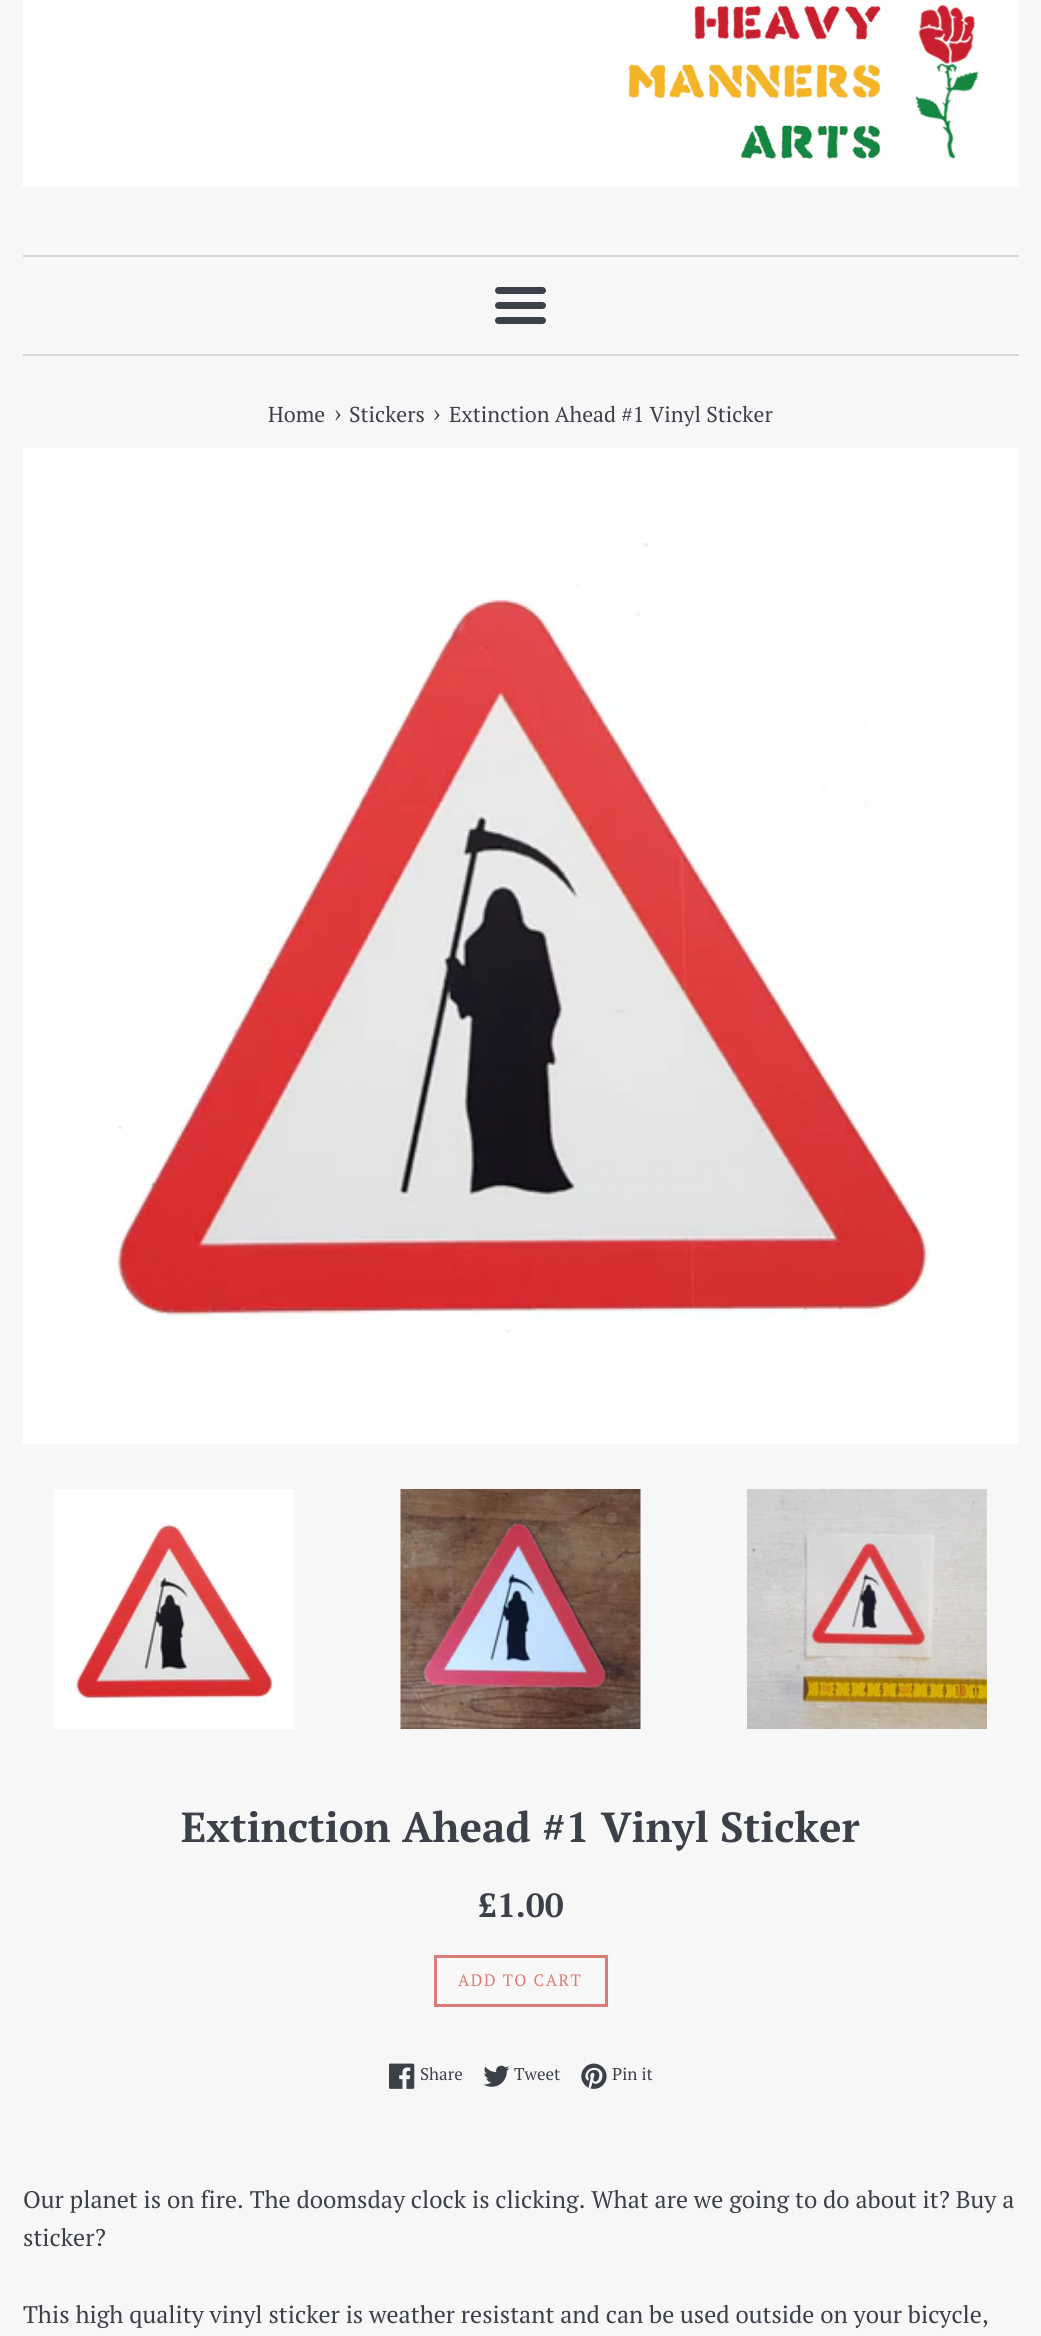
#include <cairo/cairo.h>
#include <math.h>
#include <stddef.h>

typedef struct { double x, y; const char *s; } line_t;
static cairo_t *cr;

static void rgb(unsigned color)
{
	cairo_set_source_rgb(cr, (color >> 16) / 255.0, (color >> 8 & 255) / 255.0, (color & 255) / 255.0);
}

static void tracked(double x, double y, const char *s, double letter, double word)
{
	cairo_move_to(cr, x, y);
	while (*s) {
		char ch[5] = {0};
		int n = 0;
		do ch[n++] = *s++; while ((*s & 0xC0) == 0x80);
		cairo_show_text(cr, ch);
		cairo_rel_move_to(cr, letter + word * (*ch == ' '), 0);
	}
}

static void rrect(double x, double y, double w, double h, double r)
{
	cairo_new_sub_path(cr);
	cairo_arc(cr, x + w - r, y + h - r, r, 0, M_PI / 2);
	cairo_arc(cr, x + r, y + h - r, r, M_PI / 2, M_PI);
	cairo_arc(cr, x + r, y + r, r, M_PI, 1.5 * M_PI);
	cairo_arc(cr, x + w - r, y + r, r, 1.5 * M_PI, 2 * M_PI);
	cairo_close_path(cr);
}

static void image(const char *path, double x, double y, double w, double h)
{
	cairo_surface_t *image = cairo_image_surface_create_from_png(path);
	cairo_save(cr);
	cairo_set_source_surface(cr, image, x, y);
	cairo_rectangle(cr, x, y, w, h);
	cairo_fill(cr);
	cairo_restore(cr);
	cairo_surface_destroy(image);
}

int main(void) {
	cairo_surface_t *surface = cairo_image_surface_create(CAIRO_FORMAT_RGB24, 1041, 2336);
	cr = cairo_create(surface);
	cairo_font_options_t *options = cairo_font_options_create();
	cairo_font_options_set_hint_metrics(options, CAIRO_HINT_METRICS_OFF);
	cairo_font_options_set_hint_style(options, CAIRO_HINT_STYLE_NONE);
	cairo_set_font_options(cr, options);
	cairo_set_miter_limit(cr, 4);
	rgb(0xf7f7f7);
	cairo_paint(cr);
	image("img/1.png", 22, 0, 997, 187);
	rgb(0xd7d8d2);
	cairo_rectangle(cr, 23, 255, 996, 2);
	cairo_fill(cr);
	rgb(0x3c4049);
	rrect(495, 287, 51, 7, 3.5);
	cairo_fill(cr);
	rrect(495, 302, 51, 7, 3.5);
	cairo_fill(cr);
	rrect(495, 317, 51, 7, 3.5);
	cairo_fill(cr);
	rgb(0xd7d8d2);
	cairo_rectangle(cr, 23, 354, 996, 2);
	cairo_fill(cr);
	image("img/2.png", 22, 448, 996, 996);
	image("img/3.png", 54, 1489, 240, 240);
	image("img/4.png", 400, 1489, 241, 240);
	image("img/5.png", 747, 1489, 240, 240);
	cairo_rectangle(cr, 435.5, 1956.5, 171, 49);
	rgb(0xd97c76);
	cairo_set_line_width(cr, 3);
	cairo_stroke(cr);
	image("img/6.png", 389, 2063, 26, 26);
	image("img/7.png", 483, 2065, 27, 22);
	image("img/8.png", 581, 2063, 26, 26);
	cairo_select_font_face(cr, "PT Serif", CAIRO_FONT_SLANT_NORMAL, CAIRO_FONT_WEIGHT_NORMAL);
	cairo_set_font_size(cr, 21.6);
	rgb(0x3c4049);
	cairo_move_to(cr, 268, 422);
	cairo_show_text(cr, "Home");
	cairo_set_font_size(cr, 26);
	cairo_move_to(cr, 334, 422);
	cairo_show_text(cr, "›");
	cairo_set_font_size(cr, 21.6);
	cairo_move_to(cr, 349, 422);
	cairo_show_text(cr, "Stickers");
	cairo_set_font_size(cr, 26);
	cairo_move_to(cr, 433, 422);
	cairo_show_text(cr, "›");
	cairo_set_font_size(cr, 21.6);
	cairo_move_to(cr, 449, 422);
	cairo_show_text(cr, "Extinction Ahead #1 Vinyl Sticker");
	cairo_select_font_face(cr, "PT Serif", CAIRO_FONT_SLANT_NORMAL, CAIRO_FONT_WEIGHT_BOLD);
	cairo_set_font_size(cr, 42);
	cairo_move_to(cr, 181, 1842);
	cairo_show_text(cr, "Extinction Ahead #1 Vinyl Sticker");
	cairo_set_font_size(cr, 33.5);
	cairo_move_to(cr, 478, 1917);
	cairo_show_text(cr, "£1.00");
	cairo_select_font_face(cr, "PT Serif", CAIRO_FONT_SLANT_NORMAL, CAIRO_FONT_WEIGHT_NORMAL);
	cairo_set_font_size(cr, 16.5);
	rgb(0xd97c76);
	tracked(458, 1986, "ADD TO CART", 1.5, 0);
	cairo_set_font_size(cr, 17);
	rgb(0x3c4049);
	{
		static const line_t items[] = {
			{420, 2080, "Share"},
			{514, 2080, "Tweet"},
			{612, 2080, "Pin it"},
		};
		for (size_t i = 0; i < sizeof items / sizeof *items; i++) {
			cairo_move_to(cr, items[i].x, items[i].y);
			cairo_show_text(cr, items[i].s);
		}
	}
	cairo_set_font_size(cr, 24);
	{
		static const line_t items[] = {
			{23, 2208, "Our planet is on fire. The doomsday clock is clicking. What are we going to do about it? Buy a"},
			{23, 2246, "sticker?"},
			{23, 2323, "This high quality vinyl sticker is weather resistant and can be used outside on your bicycle,"},
		};
		for (size_t i = 0; i < sizeof items / sizeof *items; i++) {
			cairo_move_to(cr, items[i].x, items[i].y);
			cairo_show_text(cr, items[i].s);
		}
	}
	cairo_surface_write_to_png(surface, "page.png");
	cairo_font_options_destroy(options);
	cairo_destroy(cr);
	cairo_surface_destroy(surface);
	return 0;
}
